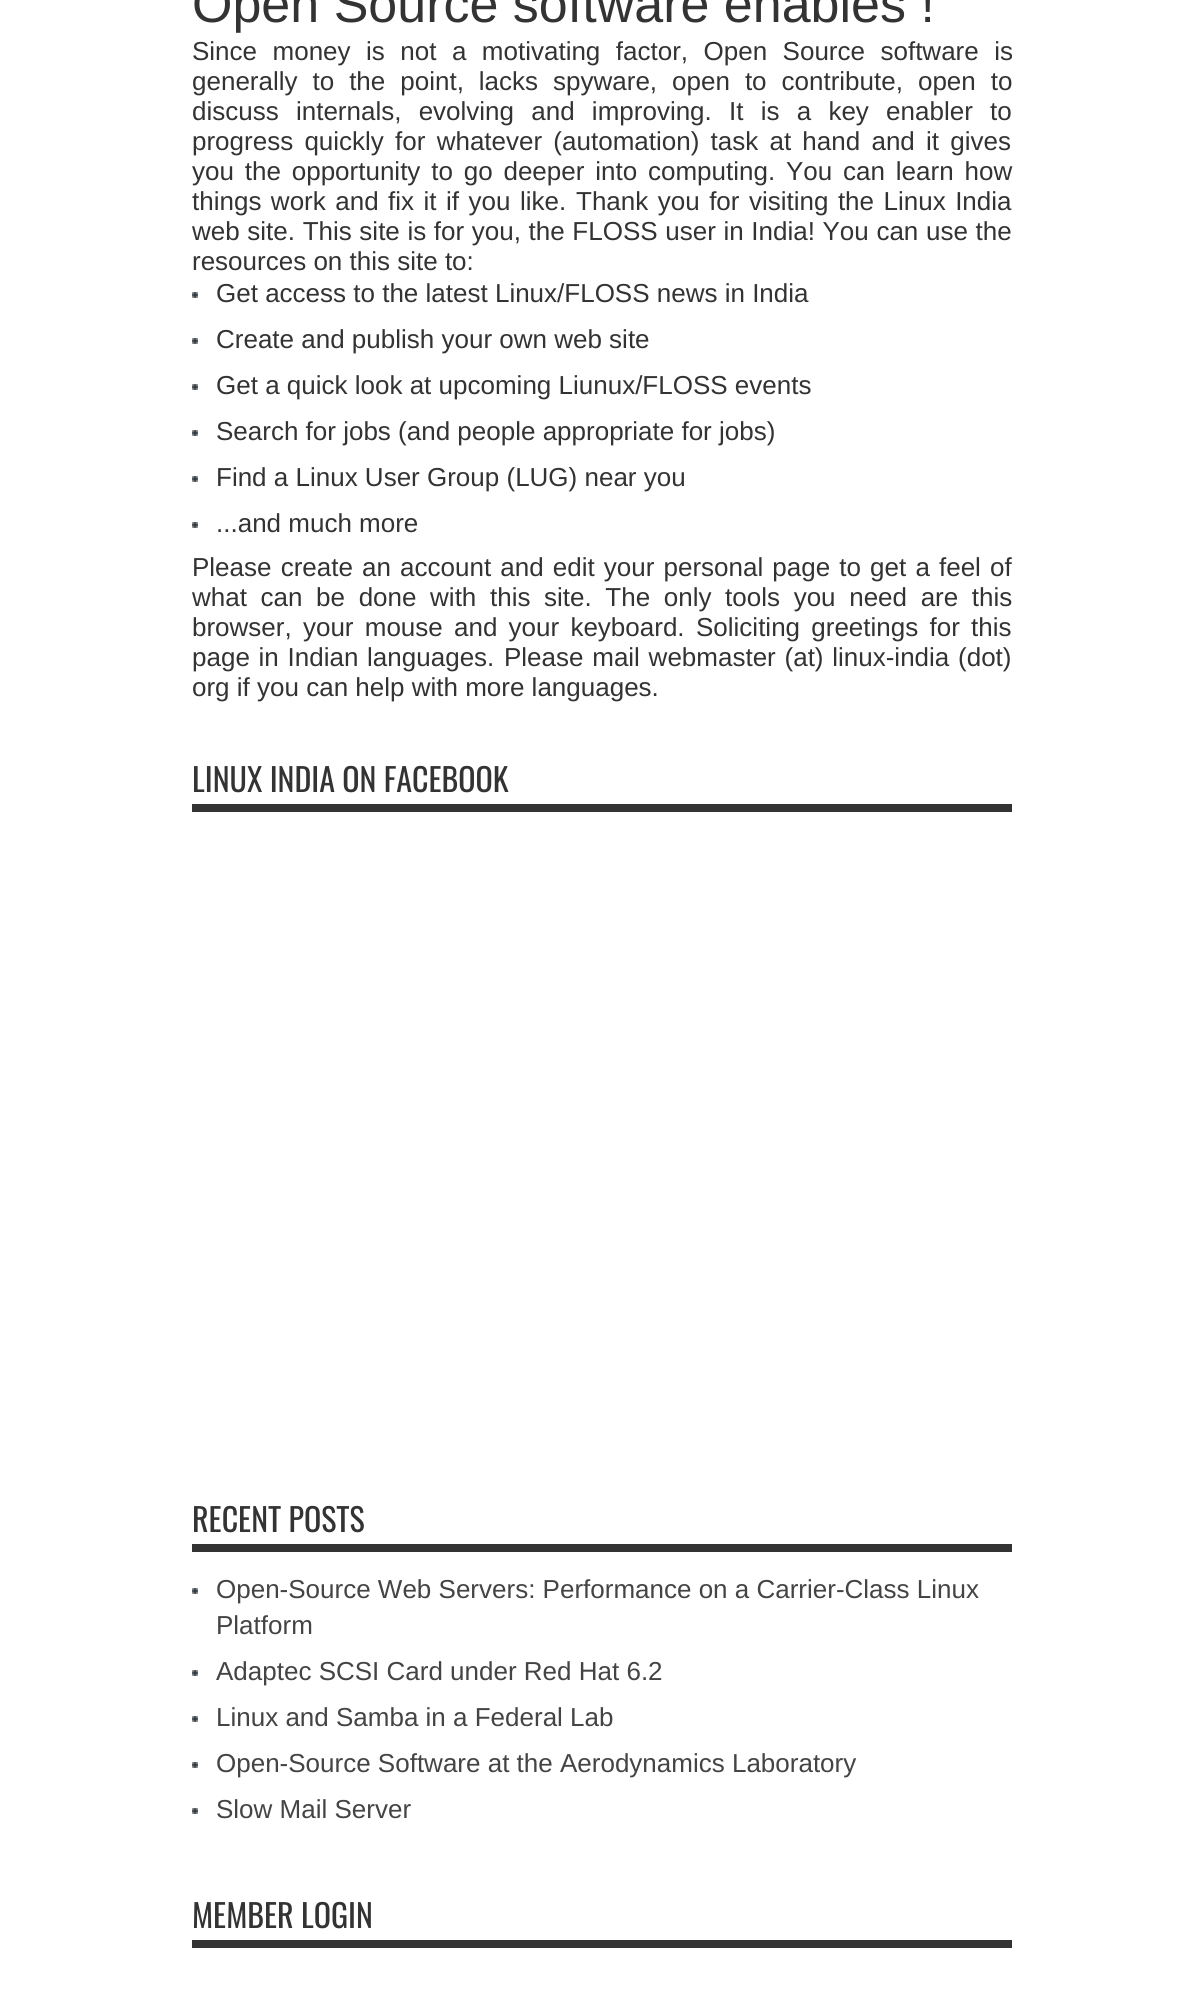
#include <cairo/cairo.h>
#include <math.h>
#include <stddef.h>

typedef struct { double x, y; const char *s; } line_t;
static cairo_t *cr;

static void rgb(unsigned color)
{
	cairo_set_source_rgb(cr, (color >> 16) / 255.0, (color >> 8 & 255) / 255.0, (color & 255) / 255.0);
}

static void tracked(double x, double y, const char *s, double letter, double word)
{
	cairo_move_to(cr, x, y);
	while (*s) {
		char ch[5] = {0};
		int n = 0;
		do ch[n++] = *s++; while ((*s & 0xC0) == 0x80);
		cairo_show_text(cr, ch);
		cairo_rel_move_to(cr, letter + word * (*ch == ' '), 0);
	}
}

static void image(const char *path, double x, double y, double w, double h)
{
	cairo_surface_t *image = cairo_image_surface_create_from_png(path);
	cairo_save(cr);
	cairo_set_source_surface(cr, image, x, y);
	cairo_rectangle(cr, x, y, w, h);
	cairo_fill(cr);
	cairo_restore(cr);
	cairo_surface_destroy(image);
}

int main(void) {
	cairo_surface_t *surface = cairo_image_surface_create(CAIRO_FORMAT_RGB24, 1204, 2004);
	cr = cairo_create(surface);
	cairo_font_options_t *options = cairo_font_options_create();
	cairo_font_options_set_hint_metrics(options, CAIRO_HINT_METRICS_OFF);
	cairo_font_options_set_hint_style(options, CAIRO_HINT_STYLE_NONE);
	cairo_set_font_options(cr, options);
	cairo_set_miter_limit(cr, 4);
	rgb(0xffffff);
	cairo_paint(cr);
	image("img/1.png", 192, 292, 6, 6);
	image("img/1.png", 192, 338, 6, 6);
	image("img/1.png", 192, 384, 6, 6);
	image("img/1.png", 192, 430, 6, 6);
	image("img/1.png", 192, 476, 6, 6);
	image("img/1.png", 192, 522, 6, 6);
	rgb(0x333333);
	cairo_rectangle(cr, 192, 804, 820, 8);
	cairo_fill(cr);
	cairo_rectangle(cr, 192, 1544, 820, 8);
	cairo_fill(cr);
	image("img/1.png", 192, 1588, 6, 6);
	image("img/1.png", 192, 1670, 6, 6);
	image("img/1.png", 192, 1716, 6, 6);
	image("img/1.png", 192, 1762, 6, 6);
	image("img/1.png", 192, 1808, 6, 6);
	cairo_rectangle(cr, 192, 1940, 820, 8);
	cairo_fill(cr);
	cairo_select_font_face(cr, "Liberation Sans", CAIRO_FONT_SLANT_NORMAL, CAIRO_FONT_WEIGHT_NORMAL);
	cairo_set_font_size(cr, 52);
	cairo_move_to(cr, 192, 22);
	cairo_show_text(cr, "Open Source software enables !");
	cairo_set_font_size(cr, 26);
	tracked(192, 60, "Since money is not a motivating factor, Open Source software is", 0, 8.25);
	tracked(192, 90, "generally to the point, lacks spyware, open to contribute, open to", 0, 7.75);
	tracked(192, 120, "discuss internals, evolving and improving. It is a key enabler to", 0, 10);
	tracked(192, 150, "progress quickly for whatever (automation) task at hand and it gives", 0, 4);
	tracked(192, 180, "you the opportunity to go deeper into computing. You can learn how", 0, 3.6);
	tracked(192, 210, "things work and fix it if you like.", 0, 2.25);
	tracked(576, 210, "Thank you for visiting the Linux India", 0, 2.25);
	tracked(192, 240, "web site. This site is for you, the FLOSS user in India! You can use the", 0, 0.4);
	{
		static const line_t items[] = {
			{192, 270, "resources on this site to:"},
			{216, 302, "Get access to the latest Linux/FLOSS news in India"},
			{216, 348, "Create and publish your own web site"},
			{216, 394, "Get a quick look at upcoming Liunux/FLOSS events"},
			{216, 440, "Search for jobs (and people appropriate for jobs)"},
			{216, 486, "Find a Linux User Group (LUG) near you"},
			{216, 532, "...and much more"},
		};
		for (size_t i = 0; i < sizeof items / sizeof *items; i++) {
			cairo_move_to(cr, items[i].x, items[i].y);
			cairo_show_text(cr, items[i].s);
		}
	}
	tracked(192, 576, "Please create an account and edit your personal page to get a feel of", 0, 1.9);
	tracked(192, 606, "what can be done with this site. The only tools you need are this", 0, 6.4);
	tracked(192, 636, "browser, your mouse and your keyboard.", 0, 4);
	tracked(696, 636, "Soliciting greetings for this", 0, 4);
	tracked(192, 666, "page in Indian languages.", 0, 1.5);
	tracked(504, 666, "Please mail webmaster (at) linux-india (dot)", 0, 1.5);
	cairo_move_to(cr, 192, 696);
	cairo_show_text(cr, "org if you can help with more languages.");
	cairo_select_font_face(cr, "Oswald", CAIRO_FONT_SLANT_NORMAL, CAIRO_FONT_WEIGHT_NORMAL);
	cairo_set_font_size(cr, 32);
	cairo_move_to(cr, 192, 792);
	cairo_show_text(cr, "LINUX INDIA ON FACEBOOK");
	cairo_move_to(cr, 192, 1532);
	cairo_show_text(cr, "RECENT POSTS");
	cairo_select_font_face(cr, "Liberation Sans", CAIRO_FONT_SLANT_NORMAL, CAIRO_FONT_WEIGHT_NORMAL);
	cairo_set_font_size(cr, 26);
	rgb(0x444444);
	{
		static const line_t items[] = {
			{216, 1598, "Open-Source Web Servers: Performance on a Carrier-Class Linux"},
			{216, 1634, "Platform"},
			{216, 1680, "Adaptec SCSI Card under Red Hat 6.2"},
			{216, 1726, "Linux and Samba in a Federal Lab"},
			{216, 1772, "Open-Source Software at the Aerodynamics Laboratory"},
			{216, 1818, "Slow Mail Server"},
		};
		for (size_t i = 0; i < sizeof items / sizeof *items; i++) {
			cairo_move_to(cr, items[i].x, items[i].y);
			cairo_show_text(cr, items[i].s);
		}
	}
	cairo_select_font_face(cr, "Oswald", CAIRO_FONT_SLANT_NORMAL, CAIRO_FONT_WEIGHT_NORMAL);
	cairo_set_font_size(cr, 32);
	rgb(0x333333);
	cairo_move_to(cr, 192, 1928);
	cairo_show_text(cr, "MEMBER LOGIN");
	cairo_surface_write_to_png(surface, "page.png");
	cairo_font_options_destroy(options);
	cairo_destroy(cr);
	cairo_surface_destroy(surface);
	return 0;
}
